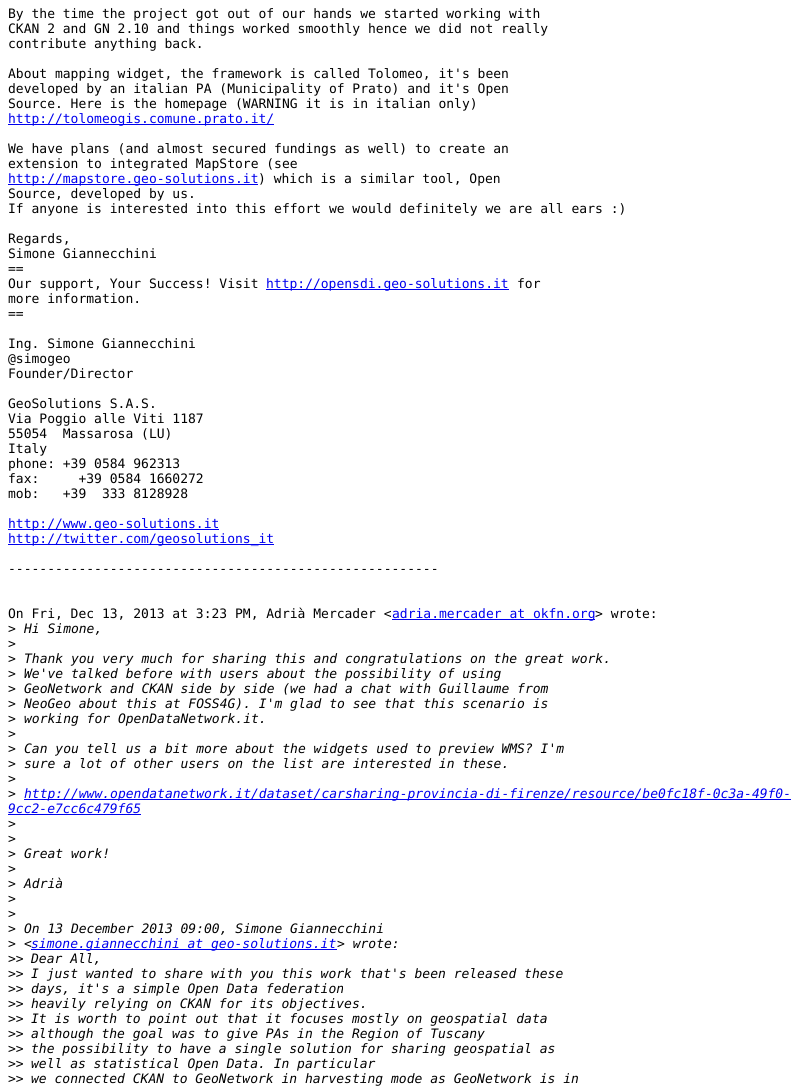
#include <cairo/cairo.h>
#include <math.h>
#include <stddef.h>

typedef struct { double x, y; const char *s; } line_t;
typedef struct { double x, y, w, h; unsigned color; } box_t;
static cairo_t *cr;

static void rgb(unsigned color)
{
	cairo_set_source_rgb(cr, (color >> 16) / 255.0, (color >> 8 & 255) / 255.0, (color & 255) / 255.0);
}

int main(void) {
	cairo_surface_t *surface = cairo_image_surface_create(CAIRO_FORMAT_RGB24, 808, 1090);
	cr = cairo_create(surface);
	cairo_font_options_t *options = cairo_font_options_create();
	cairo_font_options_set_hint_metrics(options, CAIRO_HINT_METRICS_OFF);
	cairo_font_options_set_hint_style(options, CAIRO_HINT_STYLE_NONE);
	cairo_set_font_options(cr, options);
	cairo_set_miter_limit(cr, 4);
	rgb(0xffffff);
	cairo_paint(cr);
	{
		static const box_t items[] = {
			{8, 124, 266, 1, 0x0000ee},
			{8, 184, 250, 1, 0x0000ee},
			{266, 289, 243, 1, 0x0000ee},
			{8, 529, 211, 1, 0x0000ee},
			{8, 544, 266, 1, 0x0000ee},
			{392, 619, 203, 1, 0x0000ee},
			{24, 799, 767, 1, 0x0000ee},
			{8, 814, 133, 1, 0x0000ee},
			{31, 949, 306, 1, 0x0000ee},
		};
		for (size_t i = 0; i < sizeof items / sizeof *items; i++) {
			rgb(items[i].color);
			cairo_rectangle(cr, items[i].x, items[i].y, items[i].w, items[i].h);
			cairo_fill(cr);
		}
	}
	cairo_select_font_face(cr, "DejaVu Sans Mono", CAIRO_FONT_SLANT_NORMAL, CAIRO_FONT_WEIGHT_NORMAL);
	cairo_set_font_size(cr, 13);
	rgb(0x000000);
	{
		static const line_t items[] = {
			{8, 18, "By the time the project got out of our hands we started working with"},
			{8, 33, "CKAN 2 and GN 2.10 and things worked smoothly hence we did not really"},
			{8, 48, "contribute anything back."},
			{8, 78, "About mapping widget, the framework is called Tolomeo, it's been"},
			{8, 93, "developed by an italian PA (Municipality of Prato) and it's Open"},
			{8, 108, "Source. Here is the homepage (WARNING it is in italian only)"},
		};
		for (size_t i = 0; i < sizeof items / sizeof *items; i++) {
			cairo_move_to(cr, items[i].x, items[i].y);
			cairo_show_text(cr, items[i].s);
		}
	}
	rgb(0x0000ee);
	cairo_move_to(cr, 8, 123);
	cairo_show_text(cr, "http://tolomeogis.comune.prato.it/");
	rgb(0x000000);
	cairo_move_to(cr, 8, 153);
	cairo_show_text(cr, "We have plans (and almost secured fundings as well) to create an");
	cairo_move_to(cr, 8, 168);
	cairo_show_text(cr, "extension to integrated MapStore (see");
	rgb(0x0000ee);
	cairo_move_to(cr, 8, 183);
	cairo_show_text(cr, "http://mapstore.geo-solutions.it");
	rgb(0x000000);
	{
		static const line_t items[] = {
			{258, 183, ") which is a similar tool, Open"},
			{8, 198, "Source, developed by us."},
			{8, 213, "If anyone is interested into this effort we would definitely we are all ears :)"},
			{8, 243, "Regards,"},
			{8, 258, "Simone Giannecchini"},
			{8, 273, "=="},
			{8, 288, "Our support, Your Success! Visit"},
		};
		for (size_t i = 0; i < sizeof items / sizeof *items; i++) {
			cairo_move_to(cr, items[i].x, items[i].y);
			cairo_show_text(cr, items[i].s);
		}
	}
	rgb(0x0000ee);
	cairo_move_to(cr, 266, 288);
	cairo_show_text(cr, "http://opensdi.geo-solutions.it");
	rgb(0x000000);
	{
		static const line_t items[] = {
			{517, 288, "for"},
			{8, 303, "more information."},
			{8, 318, "=="},
			{8, 348, "Ing. Simone Giannecchini"},
			{8, 363, "@simogeo"},
			{8, 378, "Founder/Director"},
			{8, 408, "GeoSolutions S.A.S."},
			{8, 423, "Via Poggio alle Viti 1187"},
			{8, 438, "55054  Massarosa (LU)"},
			{8, 453, "Italy"},
			{8, 468, "phone: +39 0584 962313"},
			{8, 483, "fax:     +39 0584 1660272"},
			{8, 498, "mob:   +39  333 8128928"},
		};
		for (size_t i = 0; i < sizeof items / sizeof *items; i++) {
			cairo_move_to(cr, items[i].x, items[i].y);
			cairo_show_text(cr, items[i].s);
		}
	}
	rgb(0x0000ee);
	cairo_move_to(cr, 8, 528);
	cairo_show_text(cr, "http://www.geo-solutions.it");
	cairo_move_to(cr, 8, 543);
	cairo_show_text(cr, "http://twitter.com/geosolutions_it");
	rgb(0x000000);
	cairo_move_to(cr, 8, 573);
	cairo_show_text(cr, "-------------------------------------------------------");
	cairo_move_to(cr, 8, 618);
	cairo_show_text(cr, "On Fri, Dec 13, 2013 at 3:23 PM, Adrià Mercader <");
	rgb(0x0000ee);
	cairo_move_to(cr, 392, 618);
	cairo_show_text(cr, "adria.mercader at okfn.org");
	rgb(0x000000);
	cairo_move_to(cr, 595, 618);
	cairo_show_text(cr, "> wrote:");
	cairo_move_to(cr, 8, 633);
	cairo_show_text(cr, ">");
	cairo_select_font_face(cr, "DejaVu Sans Mono", CAIRO_FONT_SLANT_ITALIC, CAIRO_FONT_WEIGHT_NORMAL);
	cairo_move_to(cr, 24, 633);
	cairo_show_text(cr, "Hi Simone,");
	cairo_select_font_face(cr, "DejaVu Sans Mono", CAIRO_FONT_SLANT_NORMAL, CAIRO_FONT_WEIGHT_NORMAL);
	cairo_move_to(cr, 8, 648);
	cairo_show_text(cr, ">");
	cairo_move_to(cr, 8, 663);
	cairo_show_text(cr, ">");
	cairo_select_font_face(cr, "DejaVu Sans Mono", CAIRO_FONT_SLANT_ITALIC, CAIRO_FONT_WEIGHT_NORMAL);
	cairo_move_to(cr, 24, 663);
	cairo_show_text(cr, "Thank you very much for sharing this and congratulations on the great work.");
	cairo_select_font_face(cr, "DejaVu Sans Mono", CAIRO_FONT_SLANT_NORMAL, CAIRO_FONT_WEIGHT_NORMAL);
	cairo_move_to(cr, 8, 678);
	cairo_show_text(cr, ">");
	cairo_select_font_face(cr, "DejaVu Sans Mono", CAIRO_FONT_SLANT_ITALIC, CAIRO_FONT_WEIGHT_NORMAL);
	cairo_move_to(cr, 24, 678);
	cairo_show_text(cr, "We've talked before with users about the possibility of using");
	cairo_select_font_face(cr, "DejaVu Sans Mono", CAIRO_FONT_SLANT_NORMAL, CAIRO_FONT_WEIGHT_NORMAL);
	cairo_move_to(cr, 8, 693);
	cairo_show_text(cr, ">");
	cairo_select_font_face(cr, "DejaVu Sans Mono", CAIRO_FONT_SLANT_ITALIC, CAIRO_FONT_WEIGHT_NORMAL);
	cairo_move_to(cr, 24, 693);
	cairo_show_text(cr, "GeoNetwork and CKAN side by side (we had a chat with Guillaume from");
	cairo_select_font_face(cr, "DejaVu Sans Mono", CAIRO_FONT_SLANT_NORMAL, CAIRO_FONT_WEIGHT_NORMAL);
	cairo_move_to(cr, 8, 708);
	cairo_show_text(cr, ">");
	cairo_select_font_face(cr, "DejaVu Sans Mono", CAIRO_FONT_SLANT_ITALIC, CAIRO_FONT_WEIGHT_NORMAL);
	cairo_move_to(cr, 24, 708);
	cairo_show_text(cr, "NeoGeo about this at FOSS4G). I'm glad to see that this scenario is");
	cairo_select_font_face(cr, "DejaVu Sans Mono", CAIRO_FONT_SLANT_NORMAL, CAIRO_FONT_WEIGHT_NORMAL);
	cairo_move_to(cr, 8, 723);
	cairo_show_text(cr, ">");
	cairo_select_font_face(cr, "DejaVu Sans Mono", CAIRO_FONT_SLANT_ITALIC, CAIRO_FONT_WEIGHT_NORMAL);
	cairo_move_to(cr, 24, 723);
	cairo_show_text(cr, "working for OpenDataNetwork.it.");
	cairo_select_font_face(cr, "DejaVu Sans Mono", CAIRO_FONT_SLANT_NORMAL, CAIRO_FONT_WEIGHT_NORMAL);
	cairo_move_to(cr, 8, 738);
	cairo_show_text(cr, ">");
	cairo_move_to(cr, 8, 753);
	cairo_show_text(cr, ">");
	cairo_select_font_face(cr, "DejaVu Sans Mono", CAIRO_FONT_SLANT_ITALIC, CAIRO_FONT_WEIGHT_NORMAL);
	cairo_move_to(cr, 24, 753);
	cairo_show_text(cr, "Can you tell us a bit more about the widgets used to preview WMS? I'm");
	cairo_select_font_face(cr, "DejaVu Sans Mono", CAIRO_FONT_SLANT_NORMAL, CAIRO_FONT_WEIGHT_NORMAL);
	cairo_move_to(cr, 8, 768);
	cairo_show_text(cr, ">");
	cairo_select_font_face(cr, "DejaVu Sans Mono", CAIRO_FONT_SLANT_ITALIC, CAIRO_FONT_WEIGHT_NORMAL);
	cairo_move_to(cr, 24, 768);
	cairo_show_text(cr, "sure a lot of other users on the list are interested in these.");
	cairo_select_font_face(cr, "DejaVu Sans Mono", CAIRO_FONT_SLANT_NORMAL, CAIRO_FONT_WEIGHT_NORMAL);
	cairo_move_to(cr, 8, 783);
	cairo_show_text(cr, ">");
	cairo_move_to(cr, 8, 798);
	cairo_show_text(cr, ">");
	cairo_select_font_face(cr, "DejaVu Sans Mono", CAIRO_FONT_SLANT_ITALIC, CAIRO_FONT_WEIGHT_NORMAL);
	rgb(0x0000ee);
	cairo_move_to(cr, 24, 798);
	cairo_show_text(cr, "http://www.opendatanetwork.it/dataset/carsharing-provincia-di-firenze/resource/be0fc18f-0c3a-49f0-");
	cairo_move_to(cr, 8, 813);
	cairo_show_text(cr, "9cc2-e7cc6c479f65");
	cairo_select_font_face(cr, "DejaVu Sans Mono", CAIRO_FONT_SLANT_NORMAL, CAIRO_FONT_WEIGHT_NORMAL);
	rgb(0x000000);
	{
		static const line_t items[] = {
			{8, 828, ">"},
			{8, 843, ">"},
			{8, 858, ">"},
		};
		for (size_t i = 0; i < sizeof items / sizeof *items; i++) {
			cairo_move_to(cr, items[i].x, items[i].y);
			cairo_show_text(cr, items[i].s);
		}
	}
	cairo_select_font_face(cr, "DejaVu Sans Mono", CAIRO_FONT_SLANT_ITALIC, CAIRO_FONT_WEIGHT_NORMAL);
	cairo_move_to(cr, 24, 858);
	cairo_show_text(cr, "Great work!");
	cairo_select_font_face(cr, "DejaVu Sans Mono", CAIRO_FONT_SLANT_NORMAL, CAIRO_FONT_WEIGHT_NORMAL);
	cairo_move_to(cr, 8, 873);
	cairo_show_text(cr, ">");
	cairo_move_to(cr, 8, 888);
	cairo_show_text(cr, ">");
	cairo_select_font_face(cr, "DejaVu Sans Mono", CAIRO_FONT_SLANT_ITALIC, CAIRO_FONT_WEIGHT_NORMAL);
	cairo_move_to(cr, 24, 888);
	cairo_show_text(cr, "Adrià");
	cairo_select_font_face(cr, "DejaVu Sans Mono", CAIRO_FONT_SLANT_NORMAL, CAIRO_FONT_WEIGHT_NORMAL);
	{
		static const line_t items[] = {
			{8, 903, ">"},
			{8, 918, ">"},
			{8, 933, ">"},
		};
		for (size_t i = 0; i < sizeof items / sizeof *items; i++) {
			cairo_move_to(cr, items[i].x, items[i].y);
			cairo_show_text(cr, items[i].s);
		}
	}
	cairo_select_font_face(cr, "DejaVu Sans Mono", CAIRO_FONT_SLANT_ITALIC, CAIRO_FONT_WEIGHT_NORMAL);
	cairo_move_to(cr, 24, 933);
	cairo_show_text(cr, "On 13 December 2013 09:00, Simone Giannecchini");
	cairo_select_font_face(cr, "DejaVu Sans Mono", CAIRO_FONT_SLANT_NORMAL, CAIRO_FONT_WEIGHT_NORMAL);
	cairo_move_to(cr, 8, 948);
	cairo_show_text(cr, ">");
	cairo_select_font_face(cr, "DejaVu Sans Mono", CAIRO_FONT_SLANT_ITALIC, CAIRO_FONT_WEIGHT_NORMAL);
	cairo_move_to(cr, 24, 948);
	cairo_show_text(cr, "<");
	rgb(0x0000ee);
	cairo_move_to(cr, 31, 948);
	cairo_show_text(cr, "simone.giannecchini at geo-solutions.it");
	rgb(0x000000);
	cairo_move_to(cr, 337, 948);
	cairo_show_text(cr, "> wrote:");
	cairo_select_font_face(cr, "DejaVu Sans Mono", CAIRO_FONT_SLANT_NORMAL, CAIRO_FONT_WEIGHT_NORMAL);
	cairo_move_to(cr, 8, 963);
	cairo_show_text(cr, ">>");
	cairo_select_font_face(cr, "DejaVu Sans Mono", CAIRO_FONT_SLANT_ITALIC, CAIRO_FONT_WEIGHT_NORMAL);
	cairo_move_to(cr, 31, 963);
	cairo_show_text(cr, "Dear All,");
	cairo_select_font_face(cr, "DejaVu Sans Mono", CAIRO_FONT_SLANT_NORMAL, CAIRO_FONT_WEIGHT_NORMAL);
	cairo_move_to(cr, 8, 978);
	cairo_show_text(cr, ">>");
	cairo_select_font_face(cr, "DejaVu Sans Mono", CAIRO_FONT_SLANT_ITALIC, CAIRO_FONT_WEIGHT_NORMAL);
	cairo_move_to(cr, 31, 978);
	cairo_show_text(cr, "I just wanted to share with you this work that's been released these");
	cairo_select_font_face(cr, "DejaVu Sans Mono", CAIRO_FONT_SLANT_NORMAL, CAIRO_FONT_WEIGHT_NORMAL);
	cairo_move_to(cr, 8, 993);
	cairo_show_text(cr, ">>");
	cairo_select_font_face(cr, "DejaVu Sans Mono", CAIRO_FONT_SLANT_ITALIC, CAIRO_FONT_WEIGHT_NORMAL);
	cairo_move_to(cr, 31, 993);
	cairo_show_text(cr, "days, it's a simple Open Data federation");
	cairo_select_font_face(cr, "DejaVu Sans Mono", CAIRO_FONT_SLANT_NORMAL, CAIRO_FONT_WEIGHT_NORMAL);
	cairo_move_to(cr, 8, 1008);
	cairo_show_text(cr, ">>");
	cairo_select_font_face(cr, "DejaVu Sans Mono", CAIRO_FONT_SLANT_ITALIC, CAIRO_FONT_WEIGHT_NORMAL);
	cairo_move_to(cr, 31, 1008);
	cairo_show_text(cr, "heavily relying on CKAN for its objectives.");
	cairo_select_font_face(cr, "DejaVu Sans Mono", CAIRO_FONT_SLANT_NORMAL, CAIRO_FONT_WEIGHT_NORMAL);
	cairo_move_to(cr, 8, 1023);
	cairo_show_text(cr, ">>");
	cairo_select_font_face(cr, "DejaVu Sans Mono", CAIRO_FONT_SLANT_ITALIC, CAIRO_FONT_WEIGHT_NORMAL);
	cairo_move_to(cr, 31, 1023);
	cairo_show_text(cr, "It is worth to point out that it focuses mostly on geospatial data");
	cairo_select_font_face(cr, "DejaVu Sans Mono", CAIRO_FONT_SLANT_NORMAL, CAIRO_FONT_WEIGHT_NORMAL);
	cairo_move_to(cr, 8, 1038);
	cairo_show_text(cr, ">>");
	cairo_select_font_face(cr, "DejaVu Sans Mono", CAIRO_FONT_SLANT_ITALIC, CAIRO_FONT_WEIGHT_NORMAL);
	cairo_move_to(cr, 31, 1038);
	cairo_show_text(cr, "although the goal was to give PAs in the Region of Tuscany");
	cairo_select_font_face(cr, "DejaVu Sans Mono", CAIRO_FONT_SLANT_NORMAL, CAIRO_FONT_WEIGHT_NORMAL);
	cairo_move_to(cr, 8, 1053);
	cairo_show_text(cr, ">>");
	cairo_select_font_face(cr, "DejaVu Sans Mono", CAIRO_FONT_SLANT_ITALIC, CAIRO_FONT_WEIGHT_NORMAL);
	cairo_move_to(cr, 31, 1053);
	cairo_show_text(cr, "the possibility to have a single solution for sharing geospatial as");
	cairo_select_font_face(cr, "DejaVu Sans Mono", CAIRO_FONT_SLANT_NORMAL, CAIRO_FONT_WEIGHT_NORMAL);
	cairo_move_to(cr, 8, 1068);
	cairo_show_text(cr, ">>");
	cairo_select_font_face(cr, "DejaVu Sans Mono", CAIRO_FONT_SLANT_ITALIC, CAIRO_FONT_WEIGHT_NORMAL);
	cairo_move_to(cr, 31, 1068);
	cairo_show_text(cr, "well as statistical Open Data. In particular");
	cairo_select_font_face(cr, "DejaVu Sans Mono", CAIRO_FONT_SLANT_NORMAL, CAIRO_FONT_WEIGHT_NORMAL);
	cairo_move_to(cr, 8, 1083);
	cairo_show_text(cr, ">>");
	cairo_select_font_face(cr, "DejaVu Sans Mono", CAIRO_FONT_SLANT_ITALIC, CAIRO_FONT_WEIGHT_NORMAL);
	cairo_move_to(cr, 31, 1083);
	cairo_show_text(cr, "we connected CKAN to GeoNetwork in harvesting mode as GeoNetwork is in");
	cairo_surface_write_to_png(surface, "page.png");
	cairo_font_options_destroy(options);
	cairo_destroy(cr);
	cairo_surface_destroy(surface);
	return 0;
}
